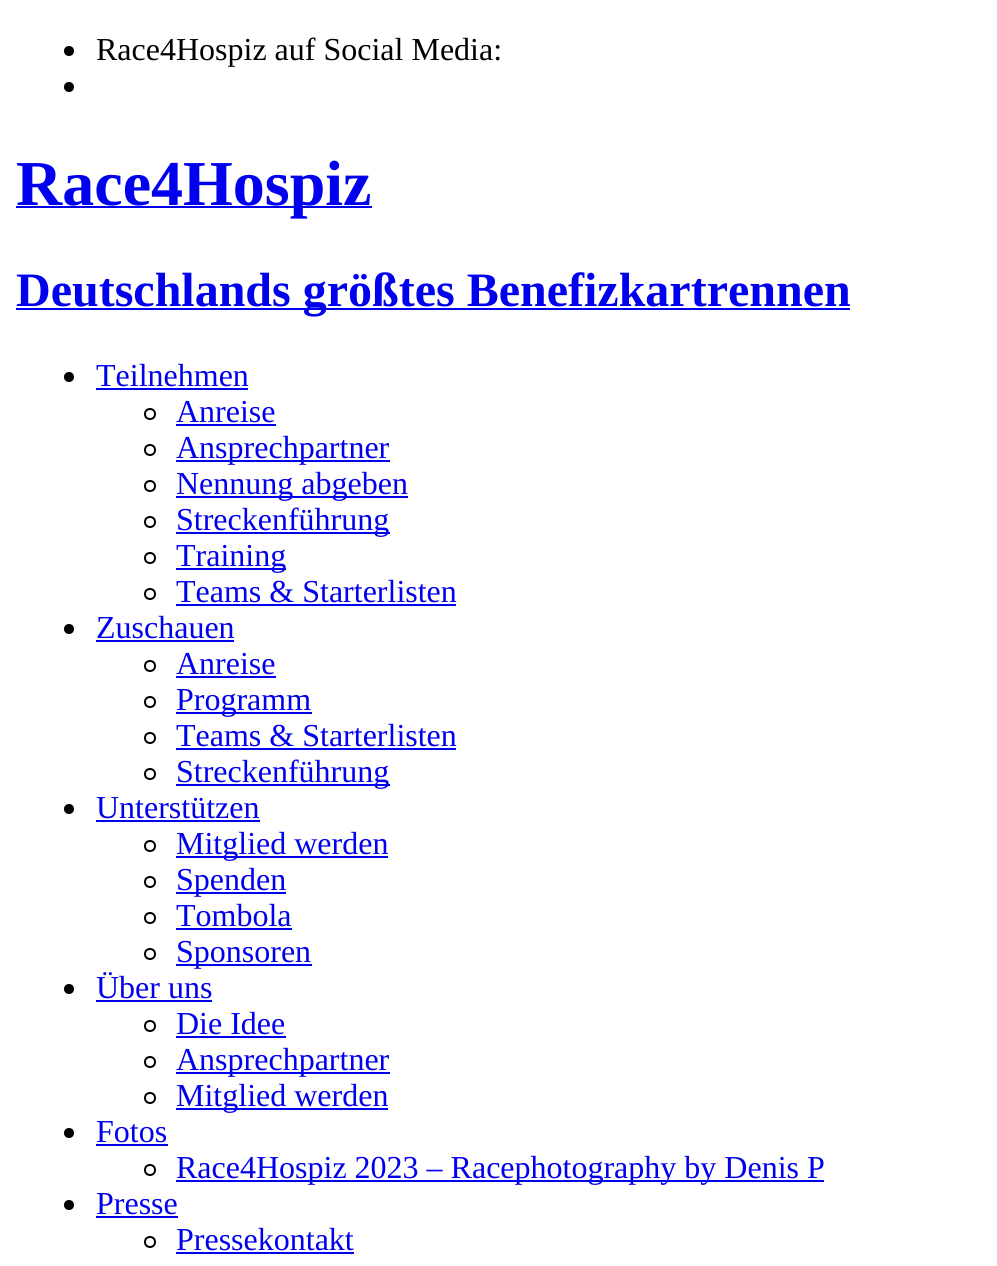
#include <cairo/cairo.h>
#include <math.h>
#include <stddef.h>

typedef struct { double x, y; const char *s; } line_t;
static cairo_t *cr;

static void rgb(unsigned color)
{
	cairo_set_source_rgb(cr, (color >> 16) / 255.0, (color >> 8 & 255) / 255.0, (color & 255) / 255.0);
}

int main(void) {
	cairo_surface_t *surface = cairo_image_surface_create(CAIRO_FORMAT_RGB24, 997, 1266);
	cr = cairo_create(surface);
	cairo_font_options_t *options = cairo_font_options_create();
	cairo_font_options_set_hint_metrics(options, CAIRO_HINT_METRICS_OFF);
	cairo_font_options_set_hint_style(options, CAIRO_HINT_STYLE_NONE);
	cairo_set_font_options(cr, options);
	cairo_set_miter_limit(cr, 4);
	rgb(0xffffff);
	cairo_paint(cr);
	rgb(0x000000);
	cairo_arc(cr, 69, 51, 5, 0, 2 * M_PI);
	cairo_fill(cr);
	cairo_arc(cr, 69, 87, 5, 0, 2 * M_PI);
	cairo_fill(cr);
	rgb(0x0000ee);
	cairo_rectangle(cr, 16, 206, 356, 2);
	cairo_fill(cr);
	cairo_rectangle(cr, 16, 308, 834, 2);
	cairo_fill(cr);
	rgb(0x000000);
	cairo_arc(cr, 69, 377, 5, 0, 2 * M_PI);
	cairo_fill(cr);
	rgb(0x0000ee);
	cairo_rectangle(cr, 96, 388, 152, 2);
	cairo_fill(cr);
	cairo_arc(cr, 150, 414, 5, 0, 2 * M_PI);
	rgb(0x000000);
	cairo_stroke(cr);
	rgb(0x0000ee);
	cairo_rectangle(cr, 176, 424, 100, 2);
	cairo_fill(cr);
	cairo_arc(cr, 150, 450, 5, 0, 2 * M_PI);
	rgb(0x000000);
	cairo_stroke(cr);
	rgb(0x0000ee);
	cairo_rectangle(cr, 176, 460, 214, 2);
	cairo_fill(cr);
	cairo_arc(cr, 150, 486, 5, 0, 2 * M_PI);
	rgb(0x000000);
	cairo_stroke(cr);
	rgb(0x0000ee);
	cairo_rectangle(cr, 176, 496, 232, 2);
	cairo_fill(cr);
	cairo_arc(cr, 150, 522, 5, 0, 2 * M_PI);
	rgb(0x000000);
	cairo_stroke(cr);
	rgb(0x0000ee);
	cairo_rectangle(cr, 176, 532, 214, 2);
	cairo_fill(cr);
	cairo_arc(cr, 150, 558, 5, 0, 2 * M_PI);
	rgb(0x000000);
	cairo_stroke(cr);
	rgb(0x0000ee);
	cairo_rectangle(cr, 176, 568, 110, 2);
	cairo_fill(cr);
	cairo_arc(cr, 150, 594, 5, 0, 2 * M_PI);
	rgb(0x000000);
	cairo_stroke(cr);
	rgb(0x0000ee);
	cairo_rectangle(cr, 176, 604, 280, 2);
	cairo_fill(cr);
	rgb(0x000000);
	cairo_arc(cr, 69, 629, 5, 0, 2 * M_PI);
	cairo_fill(cr);
	rgb(0x0000ee);
	cairo_rectangle(cr, 96, 640, 138, 2);
	cairo_fill(cr);
	cairo_arc(cr, 150, 666, 5, 0, 2 * M_PI);
	rgb(0x000000);
	cairo_stroke(cr);
	rgb(0x0000ee);
	cairo_rectangle(cr, 176, 676, 100, 2);
	cairo_fill(cr);
	cairo_arc(cr, 150, 702, 5, 0, 2 * M_PI);
	rgb(0x000000);
	cairo_stroke(cr);
	rgb(0x0000ee);
	cairo_rectangle(cr, 176, 712, 136, 2);
	cairo_fill(cr);
	cairo_arc(cr, 150, 738, 5, 0, 2 * M_PI);
	rgb(0x000000);
	cairo_stroke(cr);
	rgb(0x0000ee);
	cairo_rectangle(cr, 176, 748, 280, 2);
	cairo_fill(cr);
	cairo_arc(cr, 150, 774, 5, 0, 2 * M_PI);
	rgb(0x000000);
	cairo_stroke(cr);
	rgb(0x0000ee);
	cairo_rectangle(cr, 176, 784, 214, 2);
	cairo_fill(cr);
	rgb(0x000000);
	cairo_arc(cr, 69, 809, 5, 0, 2 * M_PI);
	cairo_fill(cr);
	rgb(0x0000ee);
	cairo_rectangle(cr, 96, 820, 164, 2);
	cairo_fill(cr);
	cairo_arc(cr, 150, 846, 5, 0, 2 * M_PI);
	rgb(0x000000);
	cairo_stroke(cr);
	rgb(0x0000ee);
	cairo_rectangle(cr, 176, 856, 212, 2);
	cairo_fill(cr);
	cairo_arc(cr, 150, 882, 5, 0, 2 * M_PI);
	rgb(0x000000);
	cairo_stroke(cr);
	rgb(0x0000ee);
	cairo_rectangle(cr, 176, 892, 110, 2);
	cairo_fill(cr);
	cairo_arc(cr, 150, 918, 5, 0, 2 * M_PI);
	rgb(0x000000);
	cairo_stroke(cr);
	rgb(0x0000ee);
	cairo_rectangle(cr, 176, 928, 116, 2);
	cairo_fill(cr);
	cairo_arc(cr, 150, 954, 5, 0, 2 * M_PI);
	rgb(0x000000);
	cairo_stroke(cr);
	rgb(0x0000ee);
	cairo_rectangle(cr, 176, 964, 136, 2);
	cairo_fill(cr);
	rgb(0x000000);
	cairo_arc(cr, 69, 989, 5, 0, 2 * M_PI);
	cairo_fill(cr);
	rgb(0x0000ee);
	cairo_rectangle(cr, 96, 1000, 116, 2);
	cairo_fill(cr);
	cairo_arc(cr, 150, 1026, 5, 0, 2 * M_PI);
	rgb(0x000000);
	cairo_stroke(cr);
	rgb(0x0000ee);
	cairo_rectangle(cr, 176, 1036, 110, 2);
	cairo_fill(cr);
	cairo_arc(cr, 150, 1062, 5, 0, 2 * M_PI);
	rgb(0x000000);
	cairo_stroke(cr);
	rgb(0x0000ee);
	cairo_rectangle(cr, 176, 1072, 214, 2);
	cairo_fill(cr);
	cairo_arc(cr, 150, 1098, 5, 0, 2 * M_PI);
	rgb(0x000000);
	cairo_stroke(cr);
	rgb(0x0000ee);
	cairo_rectangle(cr, 176, 1108, 212, 2);
	cairo_fill(cr);
	rgb(0x000000);
	cairo_arc(cr, 69, 1133, 5, 0, 2 * M_PI);
	cairo_fill(cr);
	rgb(0x0000ee);
	cairo_rectangle(cr, 96, 1144, 72, 2);
	cairo_fill(cr);
	cairo_arc(cr, 150, 1170, 5, 0, 2 * M_PI);
	rgb(0x000000);
	cairo_stroke(cr);
	rgb(0x0000ee);
	cairo_rectangle(cr, 176, 1180, 648, 2);
	cairo_fill(cr);
	rgb(0x000000);
	cairo_arc(cr, 69, 1205, 5, 0, 2 * M_PI);
	cairo_fill(cr);
	rgb(0x0000ee);
	cairo_rectangle(cr, 96, 1216, 82, 2);
	cairo_fill(cr);
	cairo_arc(cr, 150, 1242, 5, 0, 2 * M_PI);
	rgb(0x000000);
	cairo_stroke(cr);
	rgb(0x0000ee);
	cairo_rectangle(cr, 176, 1252, 178, 2);
	cairo_fill(cr);
	cairo_select_font_face(cr, "Liberation Serif", CAIRO_FONT_SLANT_NORMAL, CAIRO_FONT_WEIGHT_NORMAL);
	cairo_set_font_size(cr, 32);
	rgb(0x000000);
	cairo_move_to(cr, 96, 60);
	cairo_show_text(cr, "Race4Hospiz auf Social Media:");
	cairo_select_font_face(cr, "Liberation Serif", CAIRO_FONT_SLANT_NORMAL, CAIRO_FONT_WEIGHT_BOLD);
	cairo_set_font_size(cr, 64);
	rgb(0x0000ee);
	cairo_move_to(cr, 16, 205);
	cairo_show_text(cr, "Race4Hospiz");
	cairo_set_font_size(cr, 48);
	cairo_move_to(cr, 16, 306);
	cairo_show_text(cr, "Deutschlands größtes Benefizkartrennen");
	cairo_select_font_face(cr, "Liberation Serif", CAIRO_FONT_SLANT_NORMAL, CAIRO_FONT_WEIGHT_NORMAL);
	cairo_set_font_size(cr, 32);
	{
		static const line_t items[] = {
			{96, 386, "Teilnehmen"},
			{176, 422, "Anreise"},
			{176, 458, "Ansprechpartner"},
			{176, 494, "Nennung abgeben"},
			{176, 530, "Streckenführung"},
			{176, 566, "Training"},
			{176, 602, "Teams & Starterlisten"},
			{96, 638, "Zuschauen"},
			{176, 674, "Anreise"},
			{176, 710, "Programm"},
			{176, 746, "Teams & Starterlisten"},
			{176, 782, "Streckenführung"},
			{96, 818, "Unterstützen"},
			{176, 854, "Mitglied werden"},
			{176, 890, "Spenden"},
			{176, 926, "Tombola"},
			{176, 962, "Sponsoren"},
			{96, 998, "Über uns"},
			{176, 1034, "Die Idee"},
			{176, 1070, "Ansprechpartner"},
			{176, 1106, "Mitglied werden"},
			{96, 1142, "Fotos"},
			{176, 1178, "Race4Hospiz 2023 – Racephotography by Denis P"},
			{96, 1214, "Presse"},
			{176, 1250, "Pressekontakt"},
		};
		for (size_t i = 0; i < sizeof items / sizeof *items; i++) {
			cairo_move_to(cr, items[i].x, items[i].y);
			cairo_show_text(cr, items[i].s);
		}
	}
	cairo_surface_write_to_png(surface, "page.png");
	cairo_font_options_destroy(options);
	cairo_destroy(cr);
	cairo_surface_destroy(surface);
	return 0;
}
